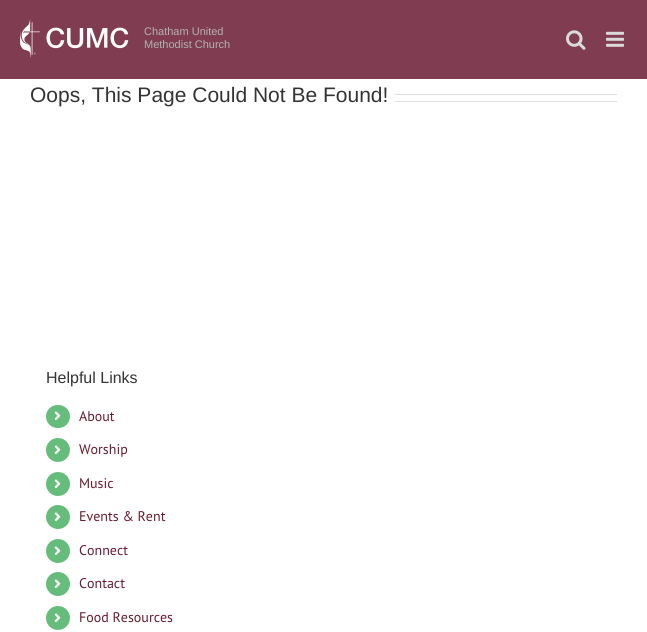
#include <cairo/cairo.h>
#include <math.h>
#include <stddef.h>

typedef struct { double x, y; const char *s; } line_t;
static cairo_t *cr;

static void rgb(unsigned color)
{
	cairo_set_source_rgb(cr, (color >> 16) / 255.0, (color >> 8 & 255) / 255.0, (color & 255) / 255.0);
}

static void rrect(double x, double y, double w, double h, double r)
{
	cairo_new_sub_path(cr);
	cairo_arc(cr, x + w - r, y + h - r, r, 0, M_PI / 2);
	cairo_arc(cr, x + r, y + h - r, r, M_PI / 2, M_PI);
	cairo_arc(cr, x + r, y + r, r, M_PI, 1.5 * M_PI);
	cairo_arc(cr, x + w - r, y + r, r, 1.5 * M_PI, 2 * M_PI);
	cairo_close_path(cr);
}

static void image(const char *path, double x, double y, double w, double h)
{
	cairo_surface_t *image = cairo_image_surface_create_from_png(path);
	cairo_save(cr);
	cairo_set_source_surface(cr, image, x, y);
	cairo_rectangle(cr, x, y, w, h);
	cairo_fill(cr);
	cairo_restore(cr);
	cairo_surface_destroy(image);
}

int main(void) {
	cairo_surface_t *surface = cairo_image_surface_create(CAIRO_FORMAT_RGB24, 647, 632);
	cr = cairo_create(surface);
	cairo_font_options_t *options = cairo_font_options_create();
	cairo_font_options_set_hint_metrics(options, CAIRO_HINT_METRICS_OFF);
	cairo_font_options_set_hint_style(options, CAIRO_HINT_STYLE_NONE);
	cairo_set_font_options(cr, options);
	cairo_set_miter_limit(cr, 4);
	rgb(0xffffff);
	cairo_paint(cr);
	rgb(0x803c50);
	cairo_rectangle(cr, 0, 0, 647, 79);
	cairo_fill(cr);
	image("img/1.png", 20, 19, 109, 39);
	image("img/2.png", 566, 30, 20, 20);
	image("img/3.png", 606, 31, 18, 16);
	rgb(0xe0dede);
	cairo_rectangle(cr, 395, 94, 222, 1);
	cairo_fill(cr);
	cairo_rectangle(cr, 395, 101, 222, 1);
	cairo_fill(cr);
	rgb(0x65bc7b);
	rrect(46, 405, 24, 23, 11.5);
	cairo_fill(cr);
	image("img/4.png", 54, 411, 7, 10);
	cairo_arc(cr, 58, 450, 12, 0, 2 * M_PI);
	cairo_fill(cr);
	image("img/4.png", 54, 445, 7, 10);
	cairo_arc(cr, 58, 484, 12, 0, 2 * M_PI);
	cairo_fill(cr);
	image("img/4.png", 54, 479, 7, 10);
	cairo_arc(cr, 58, 517, 12, 0, 2 * M_PI);
	cairo_fill(cr);
	image("img/4.png", 54, 512, 7, 10);
	cairo_arc(cr, 58, 551, 12, 0, 2 * M_PI);
	cairo_fill(cr);
	image("img/4.png", 54, 546, 7, 10);
	cairo_arc(cr, 58, 584, 12, 0, 2 * M_PI);
	cairo_fill(cr);
	image("img/4.png", 54, 579, 7, 10);
	cairo_arc(cr, 58, 618, 12, 0, 2 * M_PI);
	cairo_fill(cr);
	image("img/4.png", 54, 613, 7, 10);
	cairo_select_font_face(cr, "Liberation Sans", CAIRO_FONT_SLANT_NORMAL, CAIRO_FONT_WEIGHT_NORMAL);
	cairo_set_font_size(cr, 11);
	rgb(0xb2b2b2);
	cairo_move_to(cr, 144, 35);
	cairo_show_text(cr, "Chatham United");
	cairo_move_to(cr, 144, 48);
	cairo_show_text(cr, "Methodist Church");
	cairo_set_font_size(cr, 21);
	rgb(0x333333);
	cairo_move_to(cr, 30, 102);
	cairo_show_text(cr, "Oops, This Page Could Not Be Found!");
	cairo_set_font_size(cr, 16);
	cairo_move_to(cr, 46, 383);
	cairo_show_text(cr, "Helpful Links");
	cairo_select_font_face(cr, "PT Sans", CAIRO_FONT_SLANT_NORMAL, CAIRO_FONT_WEIGHT_NORMAL);
	cairo_set_font_size(cr, 14);
	rgb(0x6a1a31);
	{
		static const line_t items[] = {
			{79, 421, "About"},
			{79, 454, "Worship"},
			{79, 488, "Music"},
			{79, 521, "Events & Rent"},
			{79, 555, "Connect"},
			{79, 588, "Contact"},
			{79, 622, "Food Resources"},
		};
		for (size_t i = 0; i < sizeof items / sizeof *items; i++) {
			cairo_move_to(cr, items[i].x, items[i].y);
			cairo_show_text(cr, items[i].s);
		}
	}
	cairo_surface_write_to_png(surface, "page.png");
	cairo_font_options_destroy(options);
	cairo_destroy(cr);
	cairo_surface_destroy(surface);
	return 0;
}
